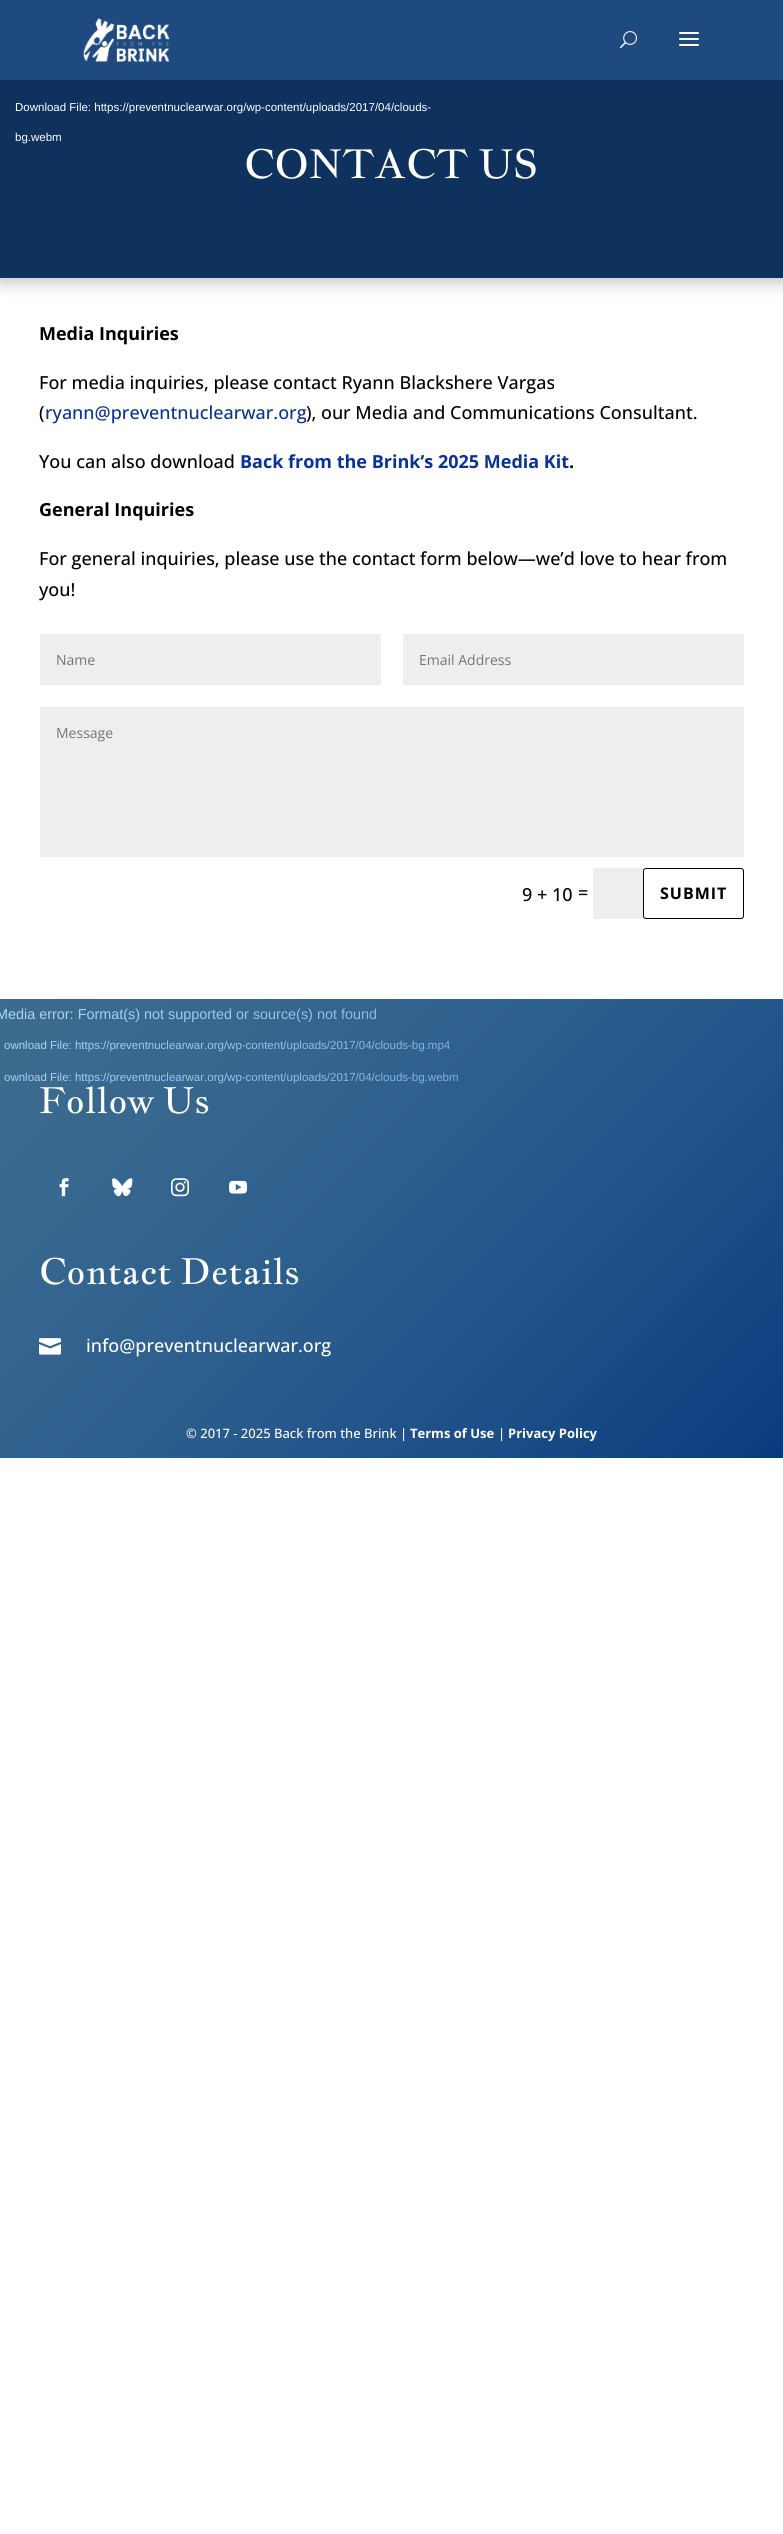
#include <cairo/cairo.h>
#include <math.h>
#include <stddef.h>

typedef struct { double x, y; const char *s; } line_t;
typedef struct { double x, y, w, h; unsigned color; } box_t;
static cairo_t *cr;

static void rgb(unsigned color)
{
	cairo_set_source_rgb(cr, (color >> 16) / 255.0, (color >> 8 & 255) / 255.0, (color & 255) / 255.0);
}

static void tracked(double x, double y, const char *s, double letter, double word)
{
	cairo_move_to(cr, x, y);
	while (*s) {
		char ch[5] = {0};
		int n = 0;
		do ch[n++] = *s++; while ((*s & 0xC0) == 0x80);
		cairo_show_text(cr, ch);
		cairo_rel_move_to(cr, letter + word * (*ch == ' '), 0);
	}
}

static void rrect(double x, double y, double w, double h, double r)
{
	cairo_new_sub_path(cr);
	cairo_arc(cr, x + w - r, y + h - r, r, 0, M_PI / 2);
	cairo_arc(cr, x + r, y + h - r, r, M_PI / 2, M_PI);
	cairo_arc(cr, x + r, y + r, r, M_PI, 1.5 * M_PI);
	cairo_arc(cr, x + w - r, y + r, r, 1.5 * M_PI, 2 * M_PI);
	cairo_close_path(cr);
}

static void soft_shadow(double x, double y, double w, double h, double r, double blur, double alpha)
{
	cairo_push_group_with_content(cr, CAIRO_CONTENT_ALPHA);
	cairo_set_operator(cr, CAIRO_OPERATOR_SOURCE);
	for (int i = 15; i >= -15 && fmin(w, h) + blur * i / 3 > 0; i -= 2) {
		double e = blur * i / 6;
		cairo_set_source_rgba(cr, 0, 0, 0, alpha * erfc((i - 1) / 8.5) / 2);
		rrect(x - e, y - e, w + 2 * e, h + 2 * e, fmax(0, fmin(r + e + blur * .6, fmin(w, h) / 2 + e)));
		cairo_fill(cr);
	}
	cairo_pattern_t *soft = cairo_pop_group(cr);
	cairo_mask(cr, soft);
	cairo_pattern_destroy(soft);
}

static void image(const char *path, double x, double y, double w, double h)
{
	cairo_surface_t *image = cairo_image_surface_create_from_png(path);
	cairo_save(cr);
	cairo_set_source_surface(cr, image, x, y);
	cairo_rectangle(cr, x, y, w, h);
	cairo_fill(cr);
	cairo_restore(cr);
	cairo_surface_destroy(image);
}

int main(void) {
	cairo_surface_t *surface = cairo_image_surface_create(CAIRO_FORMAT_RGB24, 783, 2534);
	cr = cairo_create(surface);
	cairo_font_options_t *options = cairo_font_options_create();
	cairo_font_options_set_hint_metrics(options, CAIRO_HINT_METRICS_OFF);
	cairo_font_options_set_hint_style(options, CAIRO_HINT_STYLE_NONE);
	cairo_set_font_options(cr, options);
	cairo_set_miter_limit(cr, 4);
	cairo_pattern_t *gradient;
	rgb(0xffffff);
	cairo_paint(cr);
	rgb(0x000000);
	soft_shadow(0, 2, 783, 278, 0, 9, 0.3);
	rgb(0x1f4a7f);
	cairo_rectangle(cr, 0, 0, 783, 80);
	cairo_fill(cr);
	image("img/1.png", 83, 18, 87, 44);
	image("img/2.png", 620, 31, 17, 18);
	image("img/3.png", 679, 32, 20, 14);
	{
		static const box_t items[] = {
			{0, 80, 783, 198, 0x0e315d},
			{40, 634, 341, 51, 0xeeeeee},
			{403, 634, 341, 51, 0xeeeeee},
			{40, 707, 704, 150, 0xeeeeee},
			{593, 868, 50, 51, 0xeeeeee},
		};
		for (size_t i = 0; i < sizeof items / sizeof *items; i++) {
			rgb(items[i].color);
			cairo_rectangle(cr, items[i].x, items[i].y, items[i].w, items[i].h);
			cairo_fill(cr);
		}
	}
	rrect(643.5, 868.5, 100, 50, 2.5);
	rgb(0x000000);
	cairo_set_line_width(cr, 1);
	cairo_stroke(cr);
	rgb(0x222222);
	cairo_rectangle(cr, 0, 999, 783, 459);
	cairo_fill(cr);
	cairo_select_font_face(cr, "Liberation Sans", CAIRO_FONT_SLANT_NORMAL, CAIRO_FONT_WEIGHT_NORMAL);
	cairo_set_font_size(cr, 11.5);
	rgb(0xffffff);
	cairo_move_to(cr, 15, 111);
	cairo_show_text(cr, "Download File: https://preventnuclearwar.org/wp-content/uploads/2017/04/clouds-");
	cairo_move_to(cr, 15, 141);
	cairo_show_text(cr, "bg.webm");
	cairo_select_font_face(cr, "Jacques Francois", CAIRO_FONT_SLANT_NORMAL, CAIRO_FONT_WEIGHT_NORMAL);
	cairo_set_font_size(cr, 40);
	cairo_move_to(cr, 244, 178);
	cairo_show_text(cr, "CONTACT US");
	cairo_select_font_face(cr, "Open Sans", CAIRO_FONT_SLANT_NORMAL, CAIRO_FONT_WEIGHT_BOLD);
	cairo_set_font_size(cr, 18);
	rgb(0x000000);
	cairo_move_to(cr, 39, 340);
	cairo_show_text(cr, "Media Inquiries");
	cairo_select_font_face(cr, "Open Sans Medium", CAIRO_FONT_SLANT_NORMAL, CAIRO_FONT_WEIGHT_NORMAL);
	cairo_move_to(cr, 39, 389);
	cairo_show_text(cr, "For media inquiries, please contact Ryann Blackshere Vargas");
	cairo_move_to(cr, 39, 419);
	cairo_show_text(cr, "(");
	rgb(0x093196);
	cairo_move_to(cr, 45, 419);
	cairo_show_text(cr, "ryann@preventnuclearwar.org");
	rgb(0x000000);
	cairo_move_to(cr, 306, 419);
	cairo_show_text(cr, "), our Media and Communications Consultant.");
	cairo_move_to(cr, 39, 468);
	cairo_show_text(cr, "You can also download");
	cairo_select_font_face(cr, "Open Sans", CAIRO_FONT_SLANT_NORMAL, CAIRO_FONT_WEIGHT_BOLD);
	rgb(0x093196);
	cairo_move_to(cr, 240, 468);
	cairo_show_text(cr, "Back from the Brink’s 2025 Media Kit");
	rgb(0x000000);
	cairo_move_to(cr, 569, 468);
	cairo_show_text(cr, ".");
	cairo_move_to(cr, 39, 516);
	cairo_show_text(cr, "General Inquiries");
	cairo_select_font_face(cr, "Open Sans Medium", CAIRO_FONT_SLANT_NORMAL, CAIRO_FONT_WEIGHT_NORMAL);
	cairo_move_to(cr, 39, 565);
	cairo_show_text(cr, "For general inquiries, please use the contact form below—we’d love to hear from");
	cairo_move_to(cr, 39, 596);
	cairo_show_text(cr, "you!");
	cairo_select_font_face(cr, "Open Sans", CAIRO_FONT_SLANT_NORMAL, CAIRO_FONT_WEIGHT_NORMAL);
	cairo_set_font_size(cr, 14);
	rgb(0x757575);
	{
		static const line_t items[] = {
			{56, 665, "Name"},
			{419, 665, "Email Address"},
			{56, 738, "Message"},
		};
		for (size_t i = 0; i < sizeof items / sizeof *items; i++) {
			cairo_move_to(cr, items[i].x, items[i].y);
			cairo_show_text(cr, items[i].s);
		}
	}
	cairo_select_font_face(cr, "Open Sans Medium", CAIRO_FONT_SLANT_NORMAL, CAIRO_FONT_WEIGHT_NORMAL);
	cairo_set_font_size(cr, 18);
	rgb(0x000000);
	cairo_move_to(cr, 522, 901);
	cairo_show_text(cr, "9 + 10");
	cairo_move_to(cr, 578, 899);
	cairo_show_text(cr, "=");
	cairo_select_font_face(cr, "Open Sans", CAIRO_FONT_SLANT_NORMAL, CAIRO_FONT_WEIGHT_BOLD);
	cairo_set_font_size(cr, 16);
	tracked(660, 899, "SUBMIT", 1, 0);
	cairo_select_font_face(cr, "Liberation Sans", CAIRO_FONT_SLANT_NORMAL, CAIRO_FONT_WEIGHT_NORMAL);
	cairo_set_font_size(cr, 14.4);
	rgb(0xffffff);
	cairo_move_to(cr, -4, 1019);
	cairo_show_text(cr, "Media error: Format(s) not supported or source(s) not found");
	cairo_set_font_size(cr, 11.5);
	cairo_move_to(cr, 4, 1049);
	cairo_show_text(cr, "ownload File: https://preventnuclearwar.org/wp-content/uploads/2017/04/clouds-bg.mp4");
	cairo_move_to(cr, 4, 1081);
	cairo_show_text(cr, "ownload File: https://preventnuclearwar.org/wp-content/uploads/2017/04/clouds-bg.webm");
	gradient = cairo_pattern_create_linear(81, 918, 702, 1539);
	cairo_pattern_add_color_stop_rgba(gradient, 0, 0.349, 0.71, 0.969, 0.5);
	cairo_pattern_add_color_stop_rgba(gradient, 1, 0.016, 0.247, 0.569, 0.82);
	cairo_set_source(cr, gradient);
	cairo_pattern_destroy(gradient);
	cairo_rectangle(cr, 0, 999, 783, 459);
	cairo_fill(cr);
	cairo_select_font_face(cr, "Jacques Francois", CAIRO_FONT_SLANT_NORMAL, CAIRO_FONT_WEIGHT_NORMAL);
	cairo_set_font_size(cr, 36);
	rgb(0xffffff);
	cairo_move_to(cr, 39, 1113);
	cairo_show_text(cr, "Follow Us");
	image("img/4.png", 59, 1178, 10, 19);
	image("img/5.png", 112, 1178, 21, 19);
	image("img/6.png", 171, 1178, 18, 19);
	image("img/7.png", 229, 1180, 18, 14);
	cairo_move_to(cr, 39, 1284);
	cairo_show_text(cr, "Contact Details");
	image("img/8.png", 39, 1338, 22, 17);
	cairo_select_font_face(cr, "Open Sans Medium", CAIRO_FONT_SLANT_NORMAL, CAIRO_FONT_WEIGHT_NORMAL);
	cairo_set_font_size(cr, 18);
	cairo_move_to(cr, 86, 1352);
	cairo_show_text(cr, "info@preventnuclearwar.org");
	cairo_set_font_size(cr, 13);
	cairo_move_to(cr, 186, 1438);
	cairo_show_text(cr, "© 2017 - 2025 Back from the Brink |");
	cairo_select_font_face(cr, "Open Sans", CAIRO_FONT_SLANT_NORMAL, CAIRO_FONT_WEIGHT_BOLD);
	cairo_move_to(cr, 410, 1438);
	cairo_show_text(cr, "Terms of Use");
	cairo_select_font_face(cr, "Open Sans Medium", CAIRO_FONT_SLANT_NORMAL, CAIRO_FONT_WEIGHT_NORMAL);
	cairo_move_to(cr, 498, 1438);
	cairo_show_text(cr, "|");
	cairo_select_font_face(cr, "Open Sans", CAIRO_FONT_SLANT_NORMAL, CAIRO_FONT_WEIGHT_BOLD);
	cairo_move_to(cr, 508, 1438);
	cairo_show_text(cr, "Privacy Policy");
	cairo_surface_write_to_png(surface, "page.png");
	cairo_font_options_destroy(options);
	cairo_destroy(cr);
	cairo_surface_destroy(surface);
	return 0;
}
